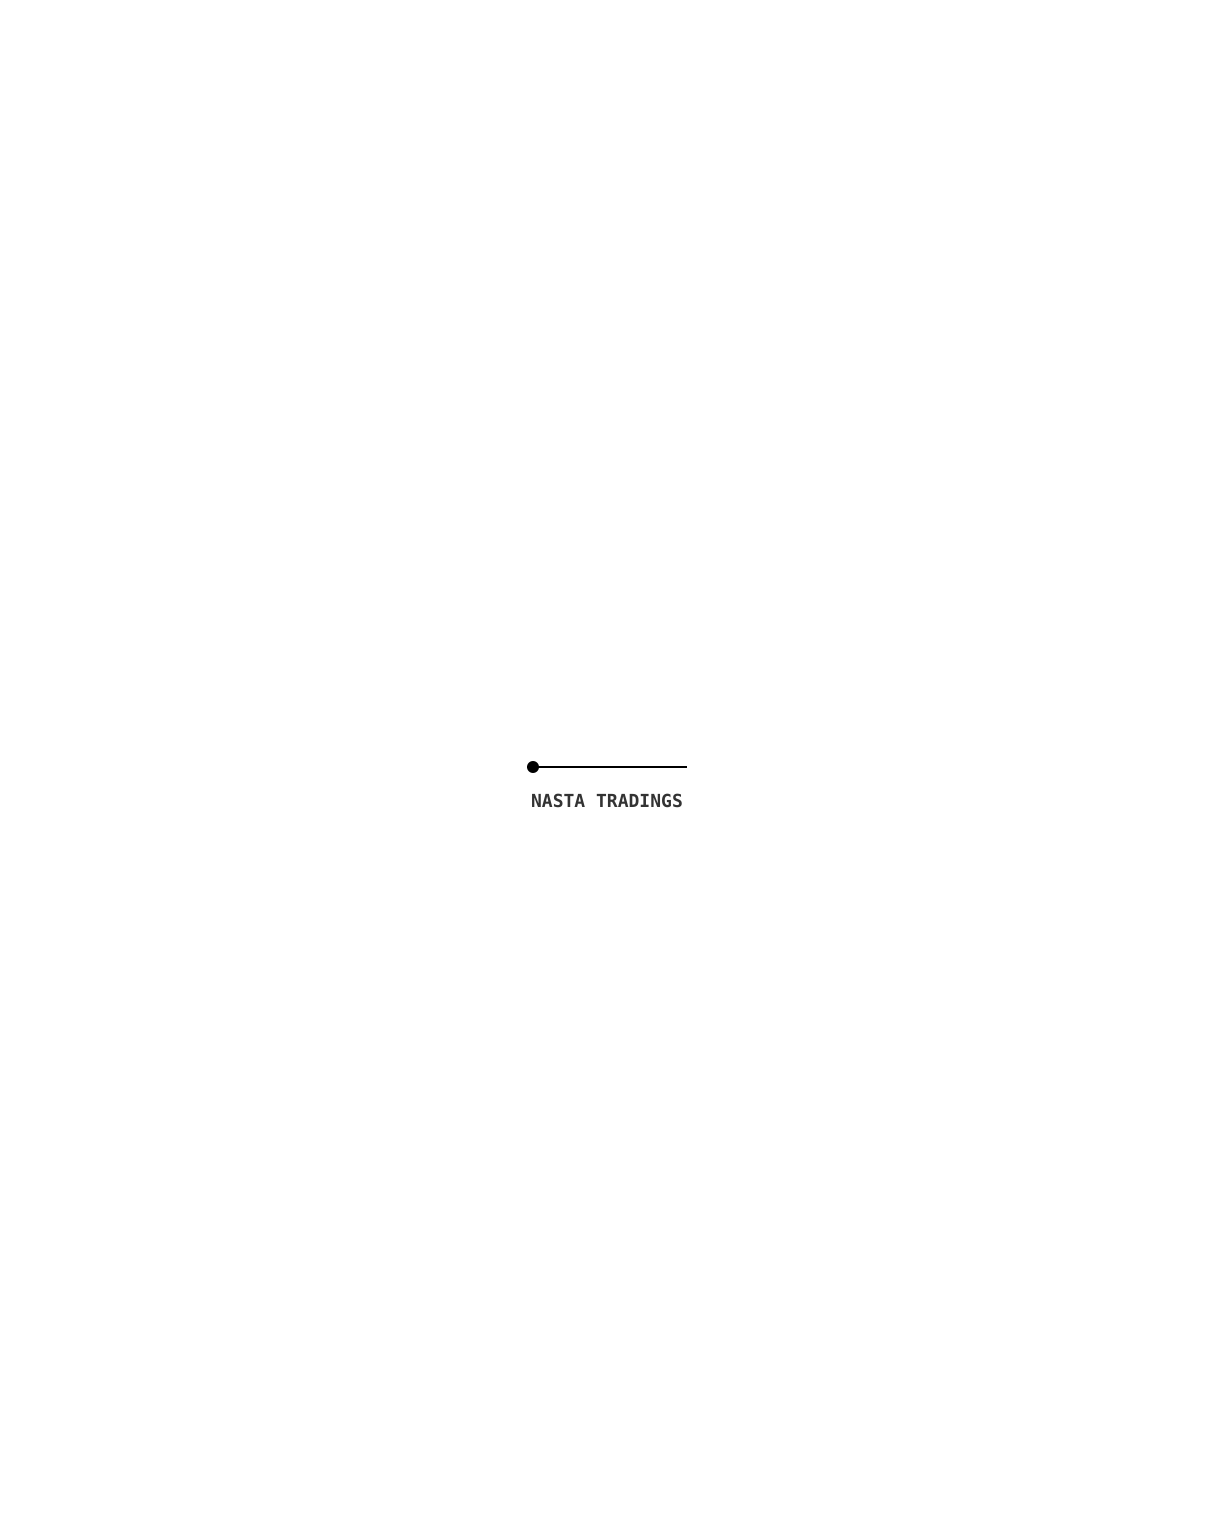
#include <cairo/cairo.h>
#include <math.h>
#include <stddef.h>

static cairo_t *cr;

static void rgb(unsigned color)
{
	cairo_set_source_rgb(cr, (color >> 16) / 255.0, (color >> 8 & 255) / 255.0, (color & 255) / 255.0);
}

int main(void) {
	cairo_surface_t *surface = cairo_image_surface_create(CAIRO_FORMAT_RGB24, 1213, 1522);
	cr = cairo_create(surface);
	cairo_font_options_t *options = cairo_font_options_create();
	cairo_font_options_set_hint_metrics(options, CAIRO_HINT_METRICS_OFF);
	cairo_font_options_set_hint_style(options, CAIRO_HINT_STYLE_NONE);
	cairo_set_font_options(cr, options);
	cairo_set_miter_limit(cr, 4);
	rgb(0xffffff);
	cairo_paint(cr);
	rgb(0x000000);
	cairo_rectangle(cr, 527, 766, 160, 2);
	cairo_fill(cr);
	cairo_arc(cr, 533, 767, 6, 0, 2 * M_PI);
	cairo_fill(cr);
	cairo_select_font_face(cr, "DejaVu Sans Mono", CAIRO_FONT_SLANT_NORMAL, CAIRO_FONT_WEIGHT_BOLD);
	cairo_set_font_size(cr, 18);
	rgb(0x333333);
	cairo_move_to(cr, 531, 807);
	cairo_show_text(cr, "NASTA TRADINGS");
	cairo_surface_write_to_png(surface, "page.png");
	cairo_font_options_destroy(options);
	cairo_destroy(cr);
	cairo_surface_destroy(surface);
	return 0;
}
